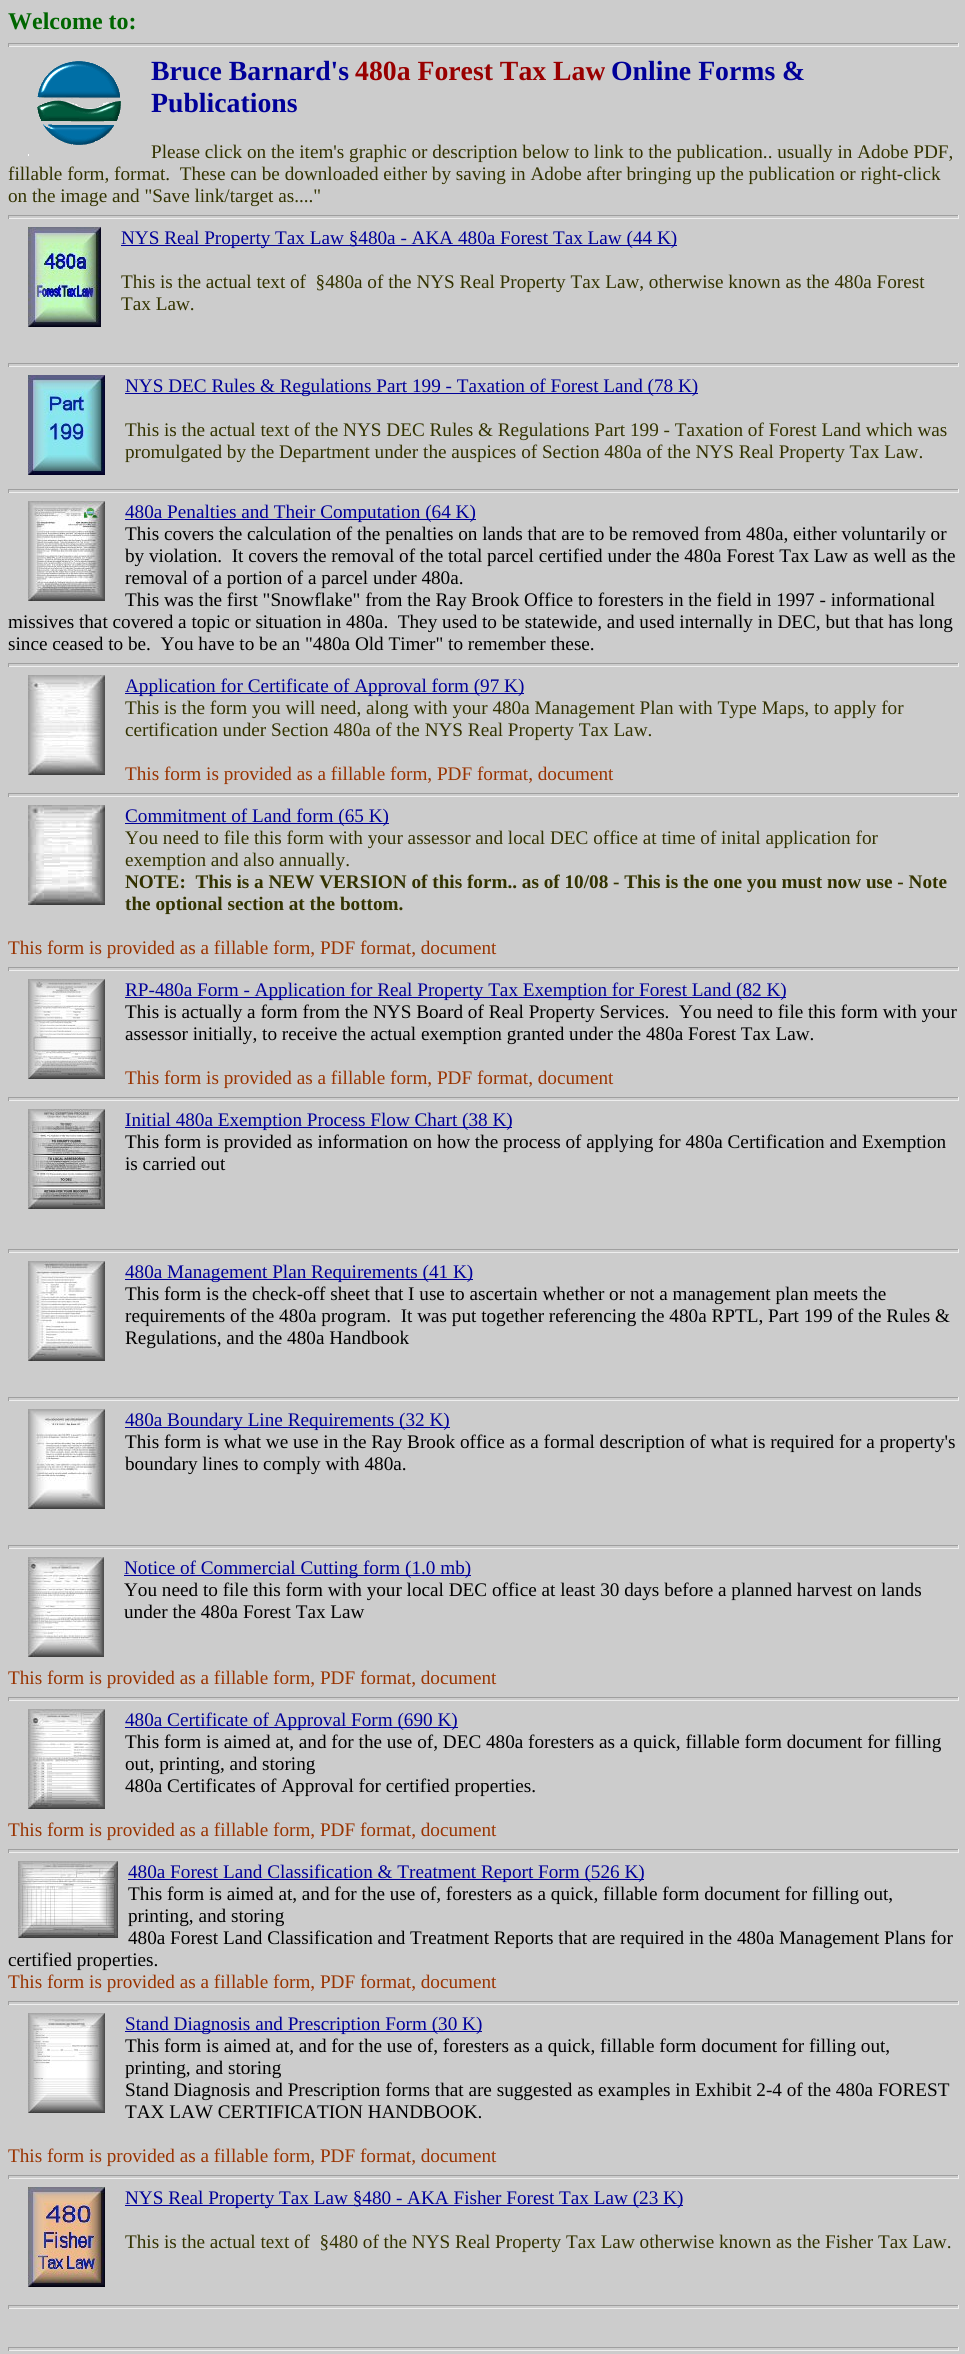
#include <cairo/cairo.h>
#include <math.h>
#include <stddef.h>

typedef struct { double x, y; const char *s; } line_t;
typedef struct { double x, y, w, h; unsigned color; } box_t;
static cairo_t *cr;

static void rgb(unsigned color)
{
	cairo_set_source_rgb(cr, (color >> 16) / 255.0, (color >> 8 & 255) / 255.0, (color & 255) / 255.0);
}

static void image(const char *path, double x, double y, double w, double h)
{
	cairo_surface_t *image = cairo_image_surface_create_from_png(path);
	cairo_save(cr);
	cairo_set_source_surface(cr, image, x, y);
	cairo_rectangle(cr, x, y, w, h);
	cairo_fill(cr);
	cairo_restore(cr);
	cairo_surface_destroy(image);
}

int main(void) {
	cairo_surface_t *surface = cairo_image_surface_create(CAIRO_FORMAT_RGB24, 965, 2354);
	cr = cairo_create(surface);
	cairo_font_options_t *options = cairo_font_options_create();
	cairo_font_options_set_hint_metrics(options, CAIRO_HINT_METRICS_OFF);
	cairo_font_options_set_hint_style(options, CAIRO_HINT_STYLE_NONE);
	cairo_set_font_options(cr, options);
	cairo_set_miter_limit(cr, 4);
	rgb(0xcccccc);
	cairo_paint(cr);
	{
		static const box_t items[] = {
			{8, 43, 951, 1, 0x9f9f9f},
			{958, 43, 1, 4, 0xeeeeee},
			{8, 46, 951, 1, 0xeeeeee},
			{8, 43, 1, 4, 0x9f9f9f},
		};
		for (size_t i = 0; i < sizeof items / sizeof *items; i++) {
			rgb(items[i].color);
			cairo_rectangle(cr, items[i].x, items[i].y, items[i].w, items[i].h);
			cairo_fill(cr);
		}
	}
	image("img/1.png", 28, 61, 93, 95);
	{
		static const box_t items[] = {
			{8, 215, 951, 1, 0x9f9f9f},
			{958, 215, 1, 4, 0xeeeeee},
			{8, 218, 951, 1, 0xeeeeee},
			{8, 215, 1, 4, 0x9f9f9f},
		};
		for (size_t i = 0; i < sizeof items / sizeof *items; i++) {
			rgb(items[i].color);
			cairo_rectangle(cr, items[i].x, items[i].y, items[i].w, items[i].h);
			cairo_fill(cr);
		}
	}
	image("img/2.png", 28, 227, 73, 100);
	{
		static const box_t items[] = {
			{121, 245, 556, 1, 0x000099},
			{8, 363, 951, 1, 0x9f9f9f},
			{958, 363, 1, 4, 0xeeeeee},
			{8, 366, 951, 1, 0xeeeeee},
			{8, 363, 1, 4, 0x9f9f9f},
		};
		for (size_t i = 0; i < sizeof items / sizeof *items; i++) {
			rgb(items[i].color);
			cairo_rectangle(cr, items[i].x, items[i].y, items[i].w, items[i].h);
			cairo_fill(cr);
		}
	}
	image("img/3.png", 28, 375, 77, 100);
	{
		static const box_t items[] = {
			{125, 393, 573, 1, 0x000099},
			{8, 489, 951, 1, 0x9f9f9f},
			{958, 489, 1, 4, 0xeeeeee},
			{8, 492, 951, 1, 0xeeeeee},
			{8, 489, 1, 4, 0x9f9f9f},
		};
		for (size_t i = 0; i < sizeof items / sizeof *items; i++) {
			rgb(items[i].color);
			cairo_rectangle(cr, items[i].x, items[i].y, items[i].w, items[i].h);
			cairo_fill(cr);
		}
	}
	image("img/4.png", 28, 501, 77, 100);
	{
		static const box_t items[] = {
			{125, 519, 351, 1, 0x000099},
			{8, 663, 951, 1, 0x9f9f9f},
			{958, 663, 1, 4, 0xeeeeee},
			{8, 666, 951, 1, 0xeeeeee},
			{8, 663, 1, 4, 0x9f9f9f},
		};
		for (size_t i = 0; i < sizeof items / sizeof *items; i++) {
			rgb(items[i].color);
			cairo_rectangle(cr, items[i].x, items[i].y, items[i].w, items[i].h);
			cairo_fill(cr);
		}
	}
	image("img/5.png", 28, 675, 77, 100);
	{
		static const box_t items[] = {
			{125, 693, 399, 1, 0x000099},
			{8, 793, 951, 1, 0x9f9f9f},
			{958, 793, 1, 4, 0xeeeeee},
			{8, 796, 951, 1, 0xeeeeee},
			{8, 793, 1, 4, 0x9f9f9f},
		};
		for (size_t i = 0; i < sizeof items / sizeof *items; i++) {
			rgb(items[i].color);
			cairo_rectangle(cr, items[i].x, items[i].y, items[i].w, items[i].h);
			cairo_fill(cr);
		}
	}
	image("img/6.png", 28, 805, 77, 100);
	{
		static const box_t items[] = {
			{125, 823, 264, 1, 0x000099},
			{8, 967, 951, 1, 0x9f9f9f},
			{958, 967, 1, 4, 0xeeeeee},
			{8, 970, 951, 1, 0xeeeeee},
			{8, 967, 1, 4, 0x9f9f9f},
		};
		for (size_t i = 0; i < sizeof items / sizeof *items; i++) {
			rgb(items[i].color);
			cairo_rectangle(cr, items[i].x, items[i].y, items[i].w, items[i].h);
			cairo_fill(cr);
		}
	}
	image("img/7.png", 28, 979, 77, 100);
	{
		static const box_t items[] = {
			{125, 997, 661, 1, 0x000099},
			{8, 1097, 951, 1, 0x9f9f9f},
			{958, 1097, 1, 4, 0xeeeeee},
			{8, 1100, 951, 1, 0xeeeeee},
			{8, 1097, 1, 4, 0x9f9f9f},
		};
		for (size_t i = 0; i < sizeof items / sizeof *items; i++) {
			rgb(items[i].color);
			cairo_rectangle(cr, items[i].x, items[i].y, items[i].w, items[i].h);
			cairo_fill(cr);
		}
	}
	image("img/8.png", 28, 1109, 77, 100);
	{
		static const box_t items[] = {
			{125, 1127, 387, 1, 0x000099},
			{8, 1249, 951, 1, 0x9f9f9f},
			{958, 1249, 1, 4, 0xeeeeee},
			{8, 1252, 951, 1, 0xeeeeee},
			{8, 1249, 1, 4, 0x9f9f9f},
		};
		for (size_t i = 0; i < sizeof items / sizeof *items; i++) {
			rgb(items[i].color);
			cairo_rectangle(cr, items[i].x, items[i].y, items[i].w, items[i].h);
			cairo_fill(cr);
		}
	}
	image("img/9.png", 28, 1261, 77, 100);
	{
		static const box_t items[] = {
			{125, 1279, 348, 1, 0x000099},
			{8, 1397, 951, 1, 0x9f9f9f},
			{958, 1397, 1, 4, 0xeeeeee},
			{8, 1400, 951, 1, 0xeeeeee},
			{8, 1397, 1, 4, 0x9f9f9f},
		};
		for (size_t i = 0; i < sizeof items / sizeof *items; i++) {
			rgb(items[i].color);
			cairo_rectangle(cr, items[i].x, items[i].y, items[i].w, items[i].h);
			cairo_fill(cr);
		}
	}
	image("img/10.png", 28, 1409, 77, 100);
	{
		static const box_t items[] = {
			{125, 1427, 325, 1, 0x000099},
			{8, 1545, 951, 1, 0x9f9f9f},
			{958, 1545, 1, 4, 0xeeeeee},
			{8, 1548, 951, 1, 0xeeeeee},
			{8, 1545, 1, 4, 0x9f9f9f},
		};
		for (size_t i = 0; i < sizeof items / sizeof *items; i++) {
			rgb(items[i].color);
			cairo_rectangle(cr, items[i].x, items[i].y, items[i].w, items[i].h);
			cairo_fill(cr);
		}
	}
	image("img/11.png", 28, 1557, 76, 100);
	{
		static const box_t items[] = {
			{124, 1575, 347, 1, 0x000099},
			{8, 1697, 951, 1, 0x9f9f9f},
			{958, 1697, 1, 4, 0xeeeeee},
			{8, 1700, 951, 1, 0xeeeeee},
			{8, 1697, 1, 4, 0x9f9f9f},
		};
		for (size_t i = 0; i < sizeof items / sizeof *items; i++) {
			rgb(items[i].color);
			cairo_rectangle(cr, items[i].x, items[i].y, items[i].w, items[i].h);
			cairo_fill(cr);
		}
	}
	image("img/12.png", 28, 1709, 77, 100);
	{
		static const box_t items[] = {
			{125, 1727, 333, 1, 0x000099},
			{8, 1849, 951, 1, 0x9f9f9f},
			{958, 1849, 1, 4, 0xeeeeee},
			{8, 1852, 951, 1, 0xeeeeee},
			{8, 1849, 1, 4, 0x9f9f9f},
		};
		for (size_t i = 0; i < sizeof items / sizeof *items; i++) {
			rgb(items[i].color);
			cairo_rectangle(cr, items[i].x, items[i].y, items[i].w, items[i].h);
			cairo_fill(cr);
		}
	}
	image("img/13.png", 18, 1861, 100, 77);
	{
		static const box_t items[] = {
			{128, 1879, 516, 1, 0x000099},
			{8, 2001, 951, 1, 0x9f9f9f},
			{958, 2001, 1, 4, 0xeeeeee},
			{8, 2004, 951, 1, 0xeeeeee},
			{8, 2001, 1, 4, 0x9f9f9f},
		};
		for (size_t i = 0; i < sizeof items / sizeof *items; i++) {
			rgb(items[i].color);
			cairo_rectangle(cr, items[i].x, items[i].y, items[i].w, items[i].h);
			cairo_fill(cr);
		}
	}
	image("img/14.png", 28, 2013, 77, 100);
	{
		static const box_t items[] = {
			{125, 2031, 357, 1, 0x000099},
			{8, 2175, 951, 1, 0x9f9f9f},
			{958, 2175, 1, 4, 0xeeeeee},
			{8, 2178, 951, 1, 0xeeeeee},
			{8, 2175, 1, 4, 0x9f9f9f},
		};
		for (size_t i = 0; i < sizeof items / sizeof *items; i++) {
			rgb(items[i].color);
			cairo_rectangle(cr, items[i].x, items[i].y, items[i].w, items[i].h);
			cairo_fill(cr);
		}
	}
	image("img/15.png", 28, 2187, 77, 100);
	{
		static const box_t items[] = {
			{125, 2205, 558, 1, 0x000099},
			{8, 2305, 951, 1, 0x9f9f9f},
			{958, 2305, 1, 4, 0xeeeeee},
			{8, 2308, 951, 1, 0xeeeeee},
			{8, 2305, 1, 4, 0x9f9f9f},
			{8, 2347, 951, 1, 0x9f9f9f},
			{958, 2347, 1, 4, 0xeeeeee},
			{8, 2350, 951, 1, 0xeeeeee},
			{8, 2347, 1, 4, 0x9f9f9f},
		};
		for (size_t i = 0; i < sizeof items / sizeof *items; i++) {
			rgb(items[i].color);
			cairo_rectangle(cr, items[i].x, items[i].y, items[i].w, items[i].h);
			cairo_fill(cr);
		}
	}
	cairo_select_font_face(cr, "Liberation Serif", CAIRO_FONT_SLANT_NORMAL, CAIRO_FONT_WEIGHT_BOLD);
	cairo_set_font_size(cr, 24);
	rgb(0x006600);
	cairo_move_to(cr, 8, 29);
	cairo_show_text(cr, "Welcome to:");
	cairo_set_font_size(cr, 27.75);
	rgb(0x000099);
	cairo_move_to(cr, 151, 80);
	cairo_show_text(cr, "Bruce Barnard's");
	rgb(0x990000);
	cairo_move_to(cr, 355, 80);
	cairo_show_text(cr, "480a Forest Tax Law");
	rgb(0x000099);
	cairo_move_to(cr, 611, 80);
	cairo_show_text(cr, "Online Forms &");
	cairo_move_to(cr, 151, 112);
	cairo_show_text(cr, "Publications");
	cairo_select_font_face(cr, "Liberation Serif", CAIRO_FONT_SLANT_NORMAL, CAIRO_FONT_WEIGHT_NORMAL);
	cairo_set_font_size(cr, 19.2);
	rgb(0x333300);
	{
		static const line_t items[] = {
			{151, 158, "Please click on the item's graphic or description below to link to the publication.. usually in Adobe PDF,"},
			{8, 180, "fillable form, format.  These can be downloaded either by saving in Adobe after bringing up the publication or right-click"},
			{8, 202, "on the image and \"Save link/target as....\""},
		};
		for (size_t i = 0; i < sizeof items / sizeof *items; i++) {
			cairo_move_to(cr, items[i].x, items[i].y);
			cairo_show_text(cr, items[i].s);
		}
	}
	rgb(0x000099);
	cairo_move_to(cr, 121, 244);
	cairo_show_text(cr, "NYS Real Property Tax Law §480a - AKA 480a Forest Tax Law (44 K)");
	rgb(0x333300);
	cairo_move_to(cr, 121, 288);
	cairo_show_text(cr, "This is the actual text of  §480a of the NYS Real Property Tax Law, otherwise known as the 480a Forest");
	cairo_move_to(cr, 121, 310);
	cairo_show_text(cr, "Tax Law.");
	rgb(0x000099);
	cairo_move_to(cr, 125, 392);
	cairo_show_text(cr, "NYS DEC Rules & Regulations Part 199 - Taxation of Forest Land (78 K)");
	rgb(0x333300);
	cairo_move_to(cr, 125, 436);
	cairo_show_text(cr, "This is the actual text of the NYS DEC Rules & Regulations Part 199 - Taxation of Forest Land which was");
	cairo_move_to(cr, 125, 458);
	cairo_show_text(cr, "promulgated by the Department under the auspices of Section 480a of the NYS Real Property Tax Law.");
	rgb(0x000099);
	cairo_move_to(cr, 125, 518);
	cairo_show_text(cr, "480a Penalties and Their Computation (64 K)");
	rgb(0x000000);
	{
		static const line_t items[] = {
			{125, 540, "This covers the calculation of the penalties on lands that are to be removed from 480a, either voluntarily or"},
			{125, 562, "by violation.  It covers the removal of the total parcel certified under the 480a Forest Tax Law as well as the"},
			{125, 584, "removal of a portion of a parcel under 480a."},
			{125, 606, "This was the first \"Snowflake\" from the Ray Brook Office to foresters in the field in 1997 - informational"},
			{8, 628, "missives that covered a topic or situation in 480a.  They used to be statewide, and used internally in DEC, but that has long"},
			{8, 650, "since ceased to be.  You have to be an \"480a Old Timer\" to remember these."},
		};
		for (size_t i = 0; i < sizeof items / sizeof *items; i++) {
			cairo_move_to(cr, items[i].x, items[i].y);
			cairo_show_text(cr, items[i].s);
		}
	}
	rgb(0x000099);
	cairo_move_to(cr, 125, 692);
	cairo_show_text(cr, "Application for Certificate of Approval form (97 K)");
	rgb(0x333300);
	cairo_move_to(cr, 125, 714);
	cairo_show_text(cr, "This is the form you will need, along with your 480a Management Plan with Type Maps, to apply for");
	cairo_move_to(cr, 125, 736);
	cairo_show_text(cr, "certification under Section 480a of the NYS Real Property Tax Law.");
	rgb(0x993300);
	cairo_move_to(cr, 125, 780);
	cairo_show_text(cr, "This form is provided as a fillable form, PDF format, document");
	rgb(0x000099);
	cairo_move_to(cr, 125, 822);
	cairo_show_text(cr, "Commitment of Land form (65 K)");
	rgb(0x333300);
	cairo_move_to(cr, 125, 844);
	cairo_show_text(cr, "You need to file this form with your assessor and local DEC office at time of inital application for");
	cairo_move_to(cr, 125, 866);
	cairo_show_text(cr, "exemption and also annually.");
	cairo_select_font_face(cr, "Liberation Serif", CAIRO_FONT_SLANT_NORMAL, CAIRO_FONT_WEIGHT_BOLD);
	cairo_move_to(cr, 125, 888);
	cairo_show_text(cr, "NOTE:  This is a NEW VERSION of this form.. as of 10/08 - This is the one you must now use - Note");
	cairo_move_to(cr, 125, 910);
	cairo_show_text(cr, "the optional section at the bottom.");
	cairo_select_font_face(cr, "Liberation Serif", CAIRO_FONT_SLANT_NORMAL, CAIRO_FONT_WEIGHT_NORMAL);
	rgb(0x993300);
	cairo_move_to(cr, 8, 954);
	cairo_show_text(cr, "This form is provided as a fillable form, PDF format, document");
	rgb(0x000099);
	cairo_move_to(cr, 125, 996);
	cairo_show_text(cr, "RP-480a Form - Application for Real Property Tax Exemption for Forest Land (82 K)");
	rgb(0x000000);
	cairo_move_to(cr, 125, 1018);
	cairo_show_text(cr, "This is actually a form from the NYS Board of Real Property Services.  You need to file this form with your");
	cairo_move_to(cr, 125, 1040);
	cairo_show_text(cr, "assessor initially, to receive the actual exemption granted under the 480a Forest Tax Law.");
	rgb(0x993300);
	cairo_move_to(cr, 125, 1084);
	cairo_show_text(cr, "This form is provided as a fillable form, PDF format, document");
	rgb(0x000099);
	cairo_move_to(cr, 125, 1126);
	cairo_show_text(cr, "Initial 480a Exemption Process Flow Chart (38 K)");
	rgb(0x000000);
	cairo_move_to(cr, 125, 1148);
	cairo_show_text(cr, "This form is provided as information on how the process of applying for 480a Certification and Exemption");
	cairo_move_to(cr, 125, 1170);
	cairo_show_text(cr, "is carried out");
	rgb(0x000099);
	cairo_move_to(cr, 125, 1278);
	cairo_show_text(cr, "480a Management Plan Requirements (41 K)");
	rgb(0x000000);
	{
		static const line_t items[] = {
			{125, 1300, "This form is the check-off sheet that I use to ascertain whether or not a management plan meets the"},
			{125, 1322, "requirements of the 480a program.  It was put together referencing the 480a RPTL, Part 199 of the Rules &"},
			{125, 1344, "Regulations, and the 480a Handbook"},
		};
		for (size_t i = 0; i < sizeof items / sizeof *items; i++) {
			cairo_move_to(cr, items[i].x, items[i].y);
			cairo_show_text(cr, items[i].s);
		}
	}
	rgb(0x000099);
	cairo_move_to(cr, 125, 1426);
	cairo_show_text(cr, "480a Boundary Line Requirements (32 K)");
	rgb(0x000000);
	cairo_move_to(cr, 125, 1448);
	cairo_show_text(cr, "This form is what we use in the Ray Brook office as a formal description of what is required for a property's");
	cairo_move_to(cr, 125, 1470);
	cairo_show_text(cr, "boundary lines to comply with 480a.");
	rgb(0x000099);
	cairo_move_to(cr, 124, 1574);
	cairo_show_text(cr, "Notice of Commercial Cutting form (1.0 mb)");
	rgb(0x000000);
	cairo_move_to(cr, 124, 1596);
	cairo_show_text(cr, "You need to file this form with your local DEC office at least 30 days before a planned harvest on lands");
	cairo_move_to(cr, 124, 1618);
	cairo_show_text(cr, "under the 480a Forest Tax Law");
	rgb(0x993300);
	cairo_move_to(cr, 8, 1684);
	cairo_show_text(cr, "This form is provided as a fillable form, PDF format, document");
	rgb(0x000099);
	cairo_move_to(cr, 125, 1726);
	cairo_show_text(cr, "480a Certificate of Approval Form (690 K)");
	rgb(0x000000);
	{
		static const line_t items[] = {
			{125, 1748, "This form is aimed at, and for the use of, DEC 480a foresters as a quick, fillable form document for filling"},
			{125, 1770, "out, printing, and storing"},
			{125, 1792, "480a Certificates of Approval for certified properties."},
		};
		for (size_t i = 0; i < sizeof items / sizeof *items; i++) {
			cairo_move_to(cr, items[i].x, items[i].y);
			cairo_show_text(cr, items[i].s);
		}
	}
	rgb(0x993300);
	cairo_move_to(cr, 8, 1836);
	cairo_show_text(cr, "This form is provided as a fillable form, PDF format, document");
	rgb(0x000099);
	cairo_move_to(cr, 128, 1878);
	cairo_show_text(cr, "480a Forest Land Classification & Treatment Report Form (526 K)");
	rgb(0x000000);
	{
		static const line_t items[] = {
			{128, 1900, "This form is aimed at, and for the use of, foresters as a quick, fillable form document for filling out,"},
			{128, 1922, "printing, and storing"},
			{128, 1944, "480a Forest Land Classification and Treatment Reports that are required in the 480a Management Plans for"},
			{8, 1966, "certified properties."},
		};
		for (size_t i = 0; i < sizeof items / sizeof *items; i++) {
			cairo_move_to(cr, items[i].x, items[i].y);
			cairo_show_text(cr, items[i].s);
		}
	}
	rgb(0x993300);
	cairo_move_to(cr, 8, 1988);
	cairo_show_text(cr, "This form is provided as a fillable form, PDF format, document");
	rgb(0x000099);
	cairo_move_to(cr, 125, 2030);
	cairo_show_text(cr, "Stand Diagnosis and Prescription Form (30 K)");
	rgb(0x000000);
	{
		static const line_t items[] = {
			{125, 2052, "This form is aimed at, and for the use of, foresters as a quick, fillable form document for filling out,"},
			{125, 2074, "printing, and storing"},
			{125, 2096, "Stand Diagnosis and Prescription forms that are suggested as examples in Exhibit 2-4 of the 480a FOREST"},
			{125, 2118, "TAX LAW CERTIFICATION HANDBOOK."},
		};
		for (size_t i = 0; i < sizeof items / sizeof *items; i++) {
			cairo_move_to(cr, items[i].x, items[i].y);
			cairo_show_text(cr, items[i].s);
		}
	}
	rgb(0x993300);
	cairo_move_to(cr, 8, 2162);
	cairo_show_text(cr, "This form is provided as a fillable form, PDF format, document");
	rgb(0x000099);
	cairo_move_to(cr, 125, 2204);
	cairo_show_text(cr, "NYS Real Property Tax Law §480 - AKA Fisher Forest Tax Law (23 K)");
	rgb(0x333300);
	cairo_move_to(cr, 125, 2248);
	cairo_show_text(cr, "This is the actual text of  §480 of the NYS Real Property Tax Law otherwise known as the Fisher Tax Law.");
	cairo_surface_write_to_png(surface, "page.png");
	cairo_font_options_destroy(options);
	cairo_destroy(cr);
	cairo_surface_destroy(surface);
	return 0;
}
